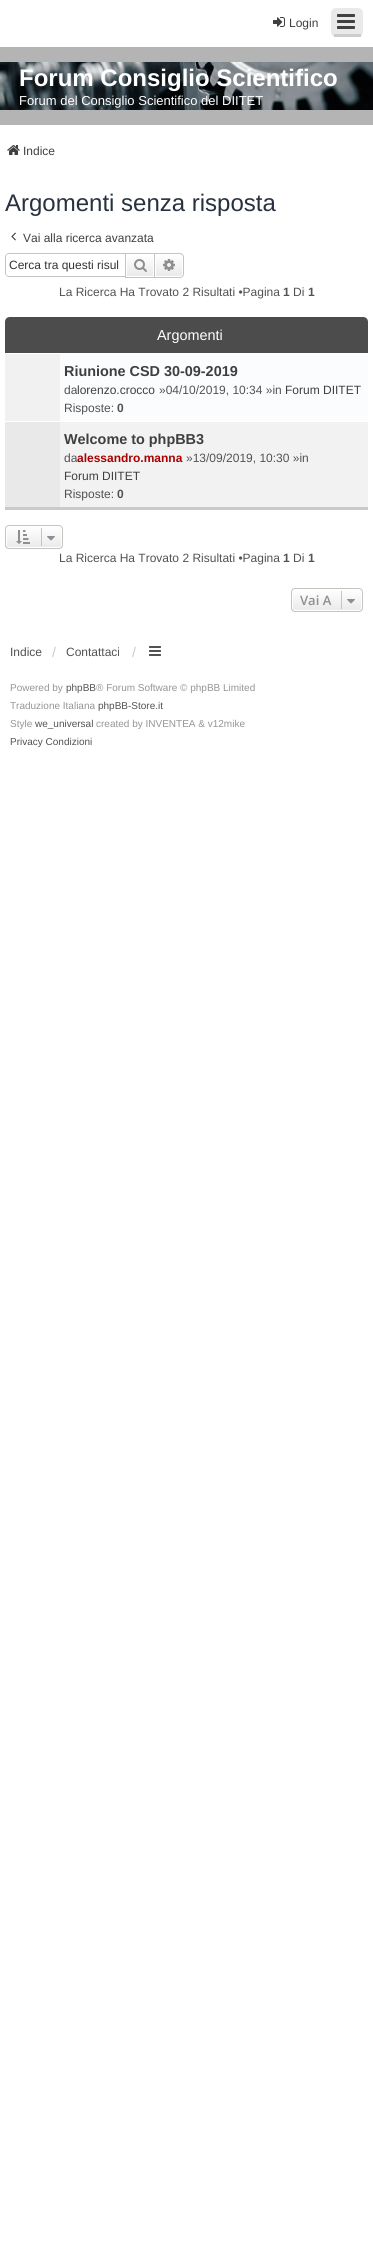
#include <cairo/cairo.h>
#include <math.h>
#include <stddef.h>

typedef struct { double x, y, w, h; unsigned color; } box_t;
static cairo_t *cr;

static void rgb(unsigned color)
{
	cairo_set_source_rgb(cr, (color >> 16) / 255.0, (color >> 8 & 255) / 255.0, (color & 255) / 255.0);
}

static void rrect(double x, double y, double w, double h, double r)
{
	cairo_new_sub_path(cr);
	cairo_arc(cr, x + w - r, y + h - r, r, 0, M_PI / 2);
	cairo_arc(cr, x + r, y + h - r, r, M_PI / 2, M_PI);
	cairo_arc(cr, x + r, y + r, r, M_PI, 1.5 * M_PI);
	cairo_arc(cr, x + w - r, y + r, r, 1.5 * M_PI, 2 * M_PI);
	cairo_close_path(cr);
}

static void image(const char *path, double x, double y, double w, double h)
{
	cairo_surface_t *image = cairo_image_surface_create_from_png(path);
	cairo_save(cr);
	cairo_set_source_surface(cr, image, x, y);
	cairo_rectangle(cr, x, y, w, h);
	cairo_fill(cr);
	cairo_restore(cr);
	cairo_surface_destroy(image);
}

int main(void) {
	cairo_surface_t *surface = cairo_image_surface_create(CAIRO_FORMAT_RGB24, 373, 2262);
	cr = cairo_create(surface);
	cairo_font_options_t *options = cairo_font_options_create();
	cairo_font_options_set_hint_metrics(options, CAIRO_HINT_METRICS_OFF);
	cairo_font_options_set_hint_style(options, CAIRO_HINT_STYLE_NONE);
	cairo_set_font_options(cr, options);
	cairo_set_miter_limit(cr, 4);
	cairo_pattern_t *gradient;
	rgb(0xffffff);
	cairo_paint(cr);
	image("img/1.png", 273, 17, 12, 10);
	rgb(0xe9e9e9);
	rrect(331, 8, 32, 29, 5);
	cairo_fill(cr);
	rgb(0xcccccc);
	cairo_rectangle(cr, 334, 34, 27, 3);
	cairo_fill(cr);
	image("img/2.png", 337, 14, 18, 15);
	rgb(0xb4b4b4);
	cairo_rectangle(cr, 0, 47, 373, 78);
	cairo_fill(cr);
	image("img/3.png", 0, 62, 373, 48);
	image("img/4.png", 7, 145, 13, 10);
	image("img/5.png", 11, 232, 5, 9);
	rgb(0xc7c3bf);
	cairo_set_fill_rule(cr, CAIRO_FILL_RULE_EVEN_ODD);
	cairo_new_path(cr);
	cairo_move_to(cr, 9, 253);
	cairo_line_to(cr, 125, 253);
	cairo_line_to(cr, 125, 277);
	cairo_line_to(cr, 9, 277);
	cairo_curve_to(cr, 7, 277, 5, 275, 5, 273);
	cairo_line_to(cr, 5, 257);
	cairo_curve_to(cr, 5, 255, 7, 253, 9, 253);
	cairo_close_path(cr);
	cairo_move_to(cr, 9, 254);
	cairo_line_to(cr, 125, 254);
	cairo_line_to(cr, 125, 276);
	cairo_line_to(cr, 9, 276);
	cairo_curve_to(cr, 7, 276, 6, 275, 6, 273);
	cairo_line_to(cr, 6, 257);
	cairo_curve_to(cr, 6, 255, 7, 254, 9, 254);
	cairo_close_path(cr);
	cairo_fill(cr);
	gradient = cairo_pattern_create_linear(140, 254, 140, 277);
	cairo_pattern_add_color_stop_rgba(gradient, 0, 1, 1, 1, 1);
	cairo_pattern_add_color_stop_rgba(gradient, 1, 0.914, 0.914, 0.914, 1);
	cairo_set_source(cr, gradient);
	cairo_pattern_destroy(gradient);
	cairo_rectangle(cr, 127, 257, 26, 19);
	cairo_fill(cr);
	cairo_rectangle(cr, 125.5, 253.5, 29, 24);
	rgb(0xc7c3bf);
	cairo_set_line_width(cr, 1);
	cairo_stroke(cr);
	image("img/6.png", 134, 259, 13, 13);
	gradient = cairo_pattern_create_linear(169, 254, 169, 277);
	cairo_pattern_add_color_stop_rgba(gradient, 0, 1, 1, 1, 1);
	cairo_pattern_add_color_stop_rgba(gradient, 1, 0.914, 0.914, 0.914, 1);
	cairo_set_source(cr, gradient);
	cairo_pattern_destroy(gradient);
	cairo_new_path(cr);
	cairo_move_to(cr, 155.5, 254.5);
	cairo_line_to(cr, 180, 254.5);
	cairo_curve_to(cr, 181.5, 254.5, 182.5, 255.5, 182.5, 257);
	cairo_line_to(cr, 182.5, 274);
	cairo_curve_to(cr, 182.5, 275.5, 181.5, 276.5, 180, 276.5);
	cairo_line_to(cr, 155.5, 276.5);
	cairo_close_path(cr);
	cairo_fill_preserve(cr);
	rgb(0xffffff);
	cairo_stroke(cr);
	rgb(0xc7c3bf);
	cairo_new_path(cr);
	cairo_move_to(cr, 155, 253);
	cairo_line_to(cr, 180, 253);
	cairo_curve_to(cr, 182, 253, 184, 255, 184, 257);
	cairo_line_to(cr, 184, 274);
	cairo_curve_to(cr, 184, 276, 182, 278, 180, 278);
	cairo_line_to(cr, 155, 278);
	cairo_close_path(cr);
	cairo_move_to(cr, 155, 254);
	cairo_line_to(cr, 180, 254);
	cairo_curve_to(cr, 181.5, 254, 183, 255.5, 183, 257);
	cairo_line_to(cr, 183, 274);
	cairo_curve_to(cr, 183, 275.5, 181.5, 277, 180, 277);
	cairo_line_to(cr, 155, 277);
	cairo_close_path(cr);
	cairo_fill(cr);
	image("img/7.png", 163, 259, 12, 12);
	rgb(0x4c4c4c);
	cairo_new_path(cr);
	cairo_move_to(cr, 10, 317);
	cairo_line_to(cr, 363, 317);
	cairo_curve_to(cr, 366, 317, 368, 319, 368, 322);
	cairo_line_to(cr, 368, 510);
	cairo_line_to(cr, 5, 510);
	cairo_line_to(cr, 5, 322);
	cairo_curve_to(cr, 5, 319, 7, 317, 10, 317);
	cairo_close_path(cr);
	cairo_fill(cr);
	{
		static const box_t items[] = {
			{5, 507, 363, 3, 0xcacaca},
			{60, 354, 308, 67, 0xfafcfe},
			{5, 353, 363, 1, 0xffffff},
			{5, 354, 55, 67, 0xf1f1f1},
			{60, 422, 308, 85, 0xf2f2f2},
			{5, 421, 363, 1, 0xffffff},
			{5, 422, 55, 85, 0xe9e9e9},
		};
		for (size_t i = 0; i < sizeof items / sizeof *items; i++) {
			rgb(items[i].color);
			cairo_rectangle(cr, items[i].x, items[i].y, items[i].w, items[i].h);
			cairo_fill(cr);
		}
	}
	cairo_save(cr);
	cairo_set_fill_rule(cr, CAIRO_FILL_RULE_WINDING);
	rrect(5, 525, 58, 24, 4);
	cairo_clip(cr);
	gradient = cairo_pattern_create_linear(34, 526, 34, 548);
	cairo_pattern_add_color_stop_rgba(gradient, 0, 1, 1, 1, 1);
	cairo_pattern_add_color_stop_rgba(gradient, 1, 0.914, 0.914, 0.914, 1);
	cairo_set_source(cr, gradient);
	cairo_pattern_destroy(gradient);
	cairo_rectangle(cr, 5, 526, 58, 22);
	cairo_fill(cr);
	cairo_restore(cr);
	rrect(6.5, 526.5, 55, 21, 2.5);
	rgb(0xffffff);
	cairo_stroke(cr);
	rrect(5.5, 525.5, 57, 23, 3.5);
	rgb(0xc7c3bf);
	cairo_stroke(cr);
	image("img/8.png", 16, 530, 14, 14);
	cairo_rectangle(cr, 41, 528, 1, 18);
	cairo_fill(cr);
	image("img/9.png", 47, 536, 8, 5);
	cairo_save(cr);
	cairo_set_fill_rule(cr, CAIRO_FILL_RULE_WINDING);
	rrect(291, 588, 72, 24, 4);
	cairo_clip(cr);
	gradient = cairo_pattern_create_linear(327, 589, 327, 611);
	cairo_pattern_add_color_stop_rgba(gradient, 0, 1, 1, 1, 1);
	cairo_pattern_add_color_stop_rgba(gradient, 1, 0.914, 0.914, 0.914, 1);
	cairo_set_source(cr, gradient);
	cairo_pattern_destroy(gradient);
	cairo_rectangle(cr, 291, 589, 72, 22);
	cairo_fill(cr);
	cairo_restore(cr);
	rrect(292.5, 589.5, 69, 21, 2.5);
	rgb(0xffffff);
	cairo_stroke(cr);
	rrect(291.5, 588.5, 71, 23, 3.5);
	rgb(0xc7c3bf);
	cairo_stroke(cr);
	cairo_rectangle(cr, 341, 591, 1, 18);
	cairo_fill(cr);
	image("img/9.png", 347, 599, 8, 5);
	image("img/10.png", 149, 646, 12, 10);
	cairo_select_font_face(cr, "Liberation Sans", CAIRO_FONT_SLANT_NORMAL, CAIRO_FONT_WEIGHT_NORMAL);
	cairo_set_font_size(cr, 12);
	rgb(0x3f3f3f);
	cairo_move_to(cr, 289, 27);
	cairo_show_text(cr, "Login");
	cairo_select_font_face(cr, "Liberation Sans", CAIRO_FONT_SLANT_NORMAL, CAIRO_FONT_WEIGHT_BOLD);
	cairo_set_font_size(cr, 24);
	rgb(0xffffff);
	cairo_move_to(cr, 19, 86);
	cairo_show_text(cr, "Forum Consiglio Scientifico");
	cairo_select_font_face(cr, "Liberation Sans", CAIRO_FONT_SLANT_NORMAL, CAIRO_FONT_WEIGHT_NORMAL);
	cairo_set_font_size(cr, 13);
	cairo_move_to(cr, 19, 105);
	cairo_show_text(cr, "Forum del Consiglio Scientifico del DIITET");
	cairo_set_font_size(cr, 12);
	rgb(0x3f3f3f);
	cairo_move_to(cr, 23, 155);
	cairo_show_text(cr, "Indice");
	cairo_set_font_size(cr, 24);
	rgb(0x28313f);
	cairo_move_to(cr, 5, 211);
	cairo_show_text(cr, "Argomenti senza risposta");
	cairo_set_font_size(cr, 12);
	rgb(0x3f3f3f);
	cairo_move_to(cr, 23, 242);
	cairo_show_text(cr, "Vai alla ricerca avanzata");
	cairo_save(cr);
	cairo_set_fill_rule(cr, CAIRO_FILL_RULE_WINDING);
	cairo_rectangle(cr, 9, 258, 109, 14);
	cairo_clip(cr);
	rgb(0x333333);
	cairo_move_to(cr, 9, 269);
	cairo_show_text(cr, "Cerca tra questi risul");
	cairo_restore(cr);
	rgb(0x525252);
	cairo_move_to(cr, 59, 296);
	cairo_show_text(cr, "La Ricerca Ha Trovato 2 Risultati •Pagina");
	cairo_select_font_face(cr, "Liberation Sans", CAIRO_FONT_SLANT_NORMAL, CAIRO_FONT_WEIGHT_BOLD);
	cairo_move_to(cr, 283, 296);
	cairo_show_text(cr, "1");
	cairo_select_font_face(cr, "Liberation Sans", CAIRO_FONT_SLANT_NORMAL, CAIRO_FONT_WEIGHT_NORMAL);
	cairo_move_to(cr, 293, 296);
	cairo_show_text(cr, "Di");
	cairo_select_font_face(cr, "Liberation Sans", CAIRO_FONT_SLANT_NORMAL, CAIRO_FONT_WEIGHT_BOLD);
	cairo_move_to(cr, 308, 296);
	cairo_show_text(cr, "1");
	cairo_select_font_face(cr, "Liberation Sans", CAIRO_FONT_SLANT_NORMAL, CAIRO_FONT_WEIGHT_NORMAL);
	cairo_set_font_size(cr, 14.4);
	rgb(0xffffff);
	cairo_move_to(cr, 157, 340);
	cairo_show_text(cr, "Argomenti");
	cairo_select_font_face(cr, "Liberation Sans", CAIRO_FONT_SLANT_NORMAL, CAIRO_FONT_WEIGHT_BOLD);
	rgb(0x3f3f3f);
	cairo_move_to(cr, 64, 376);
	cairo_show_text(cr, "Riunione CSD 30-09-2019");
	cairo_select_font_face(cr, "Liberation Sans", CAIRO_FONT_SLANT_NORMAL, CAIRO_FONT_WEIGHT_NORMAL);
	cairo_set_font_size(cr, 12);
	rgb(0x525252);
	cairo_move_to(cr, 64, 394);
	cairo_show_text(cr, "da");
	rgb(0x3f3f3f);
	cairo_move_to(cr, 77, 394);
	cairo_show_text(cr, "lorenzo.crocco");
	rgb(0x525252);
	cairo_move_to(cr, 159, 394);
	cairo_show_text(cr, "»04/10/2019, 10:34 »in");
	rgb(0x3f3f3f);
	cairo_move_to(cr, 285, 394);
	cairo_show_text(cr, "Forum DIITET");
	rgb(0x525252);
	cairo_move_to(cr, 64, 412);
	cairo_show_text(cr, "Risposte:");
	cairo_select_font_face(cr, "Liberation Sans", CAIRO_FONT_SLANT_NORMAL, CAIRO_FONT_WEIGHT_BOLD);
	cairo_move_to(cr, 117, 412);
	cairo_show_text(cr, "0");
	cairo_set_font_size(cr, 14.4);
	rgb(0x3f3f3f);
	cairo_move_to(cr, 64, 444);
	cairo_show_text(cr, "Welcome to phpBB3");
	cairo_select_font_face(cr, "Liberation Sans", CAIRO_FONT_SLANT_NORMAL, CAIRO_FONT_WEIGHT_NORMAL);
	cairo_set_font_size(cr, 12);
	rgb(0x525252);
	cairo_move_to(cr, 64, 462);
	cairo_show_text(cr, "da");
	cairo_select_font_face(cr, "Liberation Sans", CAIRO_FONT_SLANT_NORMAL, CAIRO_FONT_WEIGHT_BOLD);
	rgb(0xaa0000);
	cairo_move_to(cr, 77, 462);
	cairo_show_text(cr, "alessandro.manna");
	cairo_select_font_face(cr, "Liberation Sans", CAIRO_FONT_SLANT_NORMAL, CAIRO_FONT_WEIGHT_NORMAL);
	rgb(0x525252);
	cairo_move_to(cr, 186, 462);
	cairo_show_text(cr, "»13/09/2019, 10:30 »in");
	rgb(0x3f3f3f);
	cairo_move_to(cr, 64, 480);
	cairo_show_text(cr, "Forum DIITET");
	rgb(0x525252);
	cairo_move_to(cr, 64, 498);
	cairo_show_text(cr, "Risposte:");
	cairo_select_font_face(cr, "Liberation Sans", CAIRO_FONT_SLANT_NORMAL, CAIRO_FONT_WEIGHT_BOLD);
	cairo_move_to(cr, 117, 498);
	cairo_show_text(cr, "0");
	cairo_select_font_face(cr, "Liberation Sans", CAIRO_FONT_SLANT_NORMAL, CAIRO_FONT_WEIGHT_NORMAL);
	cairo_move_to(cr, 59, 562);
	cairo_show_text(cr, "La Ricerca Ha Trovato 2 Risultati •Pagina");
	cairo_select_font_face(cr, "Liberation Sans", CAIRO_FONT_SLANT_NORMAL, CAIRO_FONT_WEIGHT_BOLD);
	cairo_move_to(cr, 283, 562);
	cairo_show_text(cr, "1");
	cairo_select_font_face(cr, "Liberation Sans", CAIRO_FONT_SLANT_NORMAL, CAIRO_FONT_WEIGHT_NORMAL);
	cairo_move_to(cr, 293, 562);
	cairo_show_text(cr, "Di");
	cairo_select_font_face(cr, "Liberation Sans", CAIRO_FONT_SLANT_NORMAL, CAIRO_FONT_WEIGHT_BOLD);
	cairo_move_to(cr, 308, 562);
	cairo_show_text(cr, "1");
	cairo_select_font_face(cr, "Open Sans SemiBold", CAIRO_FONT_SLANT_NORMAL, CAIRO_FONT_WEIGHT_NORMAL);
	cairo_set_font_size(cr, 13);
	rgb(0x8f8f8f);
	cairo_move_to(cr, 300, 605);
	cairo_show_text(cr, "Vai A");
	cairo_select_font_face(cr, "Liberation Sans", CAIRO_FONT_SLANT_NORMAL, CAIRO_FONT_WEIGHT_NORMAL);
	cairo_set_font_size(cr, 12);
	rgb(0x525252);
	cairo_move_to(cr, 10, 656);
	cairo_show_text(cr, "Indice");
	cairo_set_font_size(cr, 14);
	rgb(0xcacaca);
	cairo_move_to(cr, 52, 657);
	cairo_show_text(cr, "/");
	cairo_set_font_size(cr, 12);
	rgb(0x525252);
	cairo_move_to(cr, 66, 656);
	cairo_show_text(cr, "Contattaci");
	cairo_set_font_size(cr, 14);
	rgb(0xcacaca);
	cairo_move_to(cr, 132, 657);
	cairo_show_text(cr, "/");
	cairo_set_font_size(cr, 10);
	rgb(0x959595);
	cairo_move_to(cr, 10, 691);
	cairo_show_text(cr, "Powered by");
	rgb(0x525252);
	cairo_move_to(cr, 66, 691);
	cairo_show_text(cr, "phpBB");
	rgb(0x959595);
	cairo_move_to(cr, 96, 691);
	cairo_show_text(cr, "® Forum Software © phpBB Limited");
	cairo_move_to(cr, 10, 709);
	cairo_show_text(cr, "Traduzione Italiana");
	rgb(0x525252);
	cairo_move_to(cr, 98, 709);
	cairo_show_text(cr, "phpBB-Store.it");
	rgb(0x959595);
	cairo_move_to(cr, 10, 727);
	cairo_show_text(cr, "Style");
	rgb(0x525252);
	cairo_move_to(cr, 35, 727);
	cairo_show_text(cr, "we_universal");
	rgb(0x959595);
	cairo_move_to(cr, 96, 727);
	cairo_show_text(cr, "created by INVENTEA & v12mike");
	rgb(0x525252);
	cairo_move_to(cr, 10, 745);
	cairo_show_text(cr, "Privacy Condizioni");
	cairo_surface_write_to_png(surface, "page.png");
	cairo_font_options_destroy(options);
	cairo_destroy(cr);
	cairo_surface_destroy(surface);
	return 0;
}
